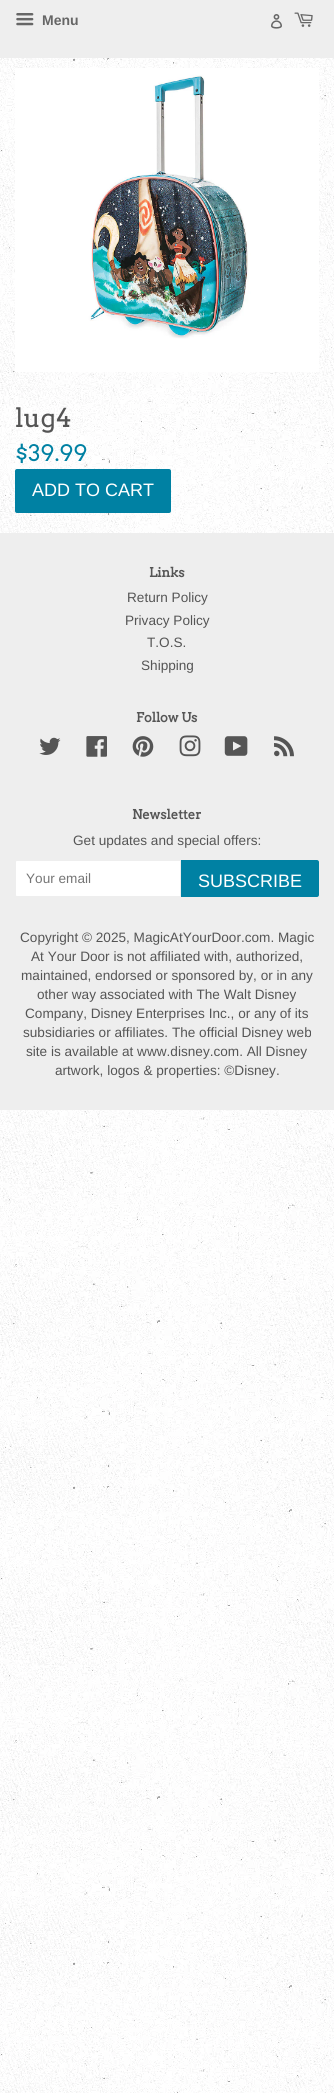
#include <cairo/cairo.h>
#include <math.h>
#include <stddef.h>

typedef struct { double x, y; const char *s; } line_t;
static cairo_t *cr;

static void rgb(unsigned color)
{
	cairo_set_source_rgb(cr, (color >> 16) / 255.0, (color >> 8 & 255) / 255.0, (color & 255) / 255.0);
}

static void rrect(double x, double y, double w, double h, double r)
{
	cairo_new_sub_path(cr);
	cairo_arc(cr, x + w - r, y + h - r, r, 0, M_PI / 2);
	cairo_arc(cr, x + r, y + h - r, r, M_PI / 2, M_PI);
	cairo_arc(cr, x + r, y + r, r, M_PI, 1.5 * M_PI);
	cairo_arc(cr, x + w - r, y + r, r, 1.5 * M_PI, 2 * M_PI);
	cairo_close_path(cr);
}

static void image(const char *path, double x, double y, double w, double h)
{
	cairo_surface_t *image = cairo_image_surface_create_from_png(path);
	cairo_save(cr);
	cairo_set_source_surface(cr, image, x, y);
	cairo_rectangle(cr, x, y, w, h);
	cairo_fill(cr);
	cairo_restore(cr);
	cairo_surface_destroy(image);
}

int main(void) {
	cairo_surface_t *surface = cairo_image_surface_create(CAIRO_FORMAT_RGB24, 334, 2093);
	cr = cairo_create(surface);
	cairo_font_options_t *options = cairo_font_options_create();
	cairo_font_options_set_hint_metrics(options, CAIRO_HINT_METRICS_OFF);
	cairo_font_options_set_hint_style(options, CAIRO_HINT_STYLE_NONE);
	cairo_set_font_options(cr, options);
	cairo_set_miter_limit(cr, 4);
	rgb(0xffffff);
	cairo_paint(cr);
	image("img/1.png", 0, 1110, 334, 983);
	image("img/2.png", 0, 58, 334, 475);
	rgb(0xeeeeee);
	cairo_rectangle(cr, 0, 0, 334, 58);
	cairo_fill(cr);
	image("img/3.png", 16, 13, 18, 13);
	image("img/4.png", 271, 14, 11, 15);
	image("img/5.png", 294, 12, 19, 15);
	image("img/6.png", 15, 68, 304, 304);
	rgb(0x0081a3);
	rrect(15, 469, 156, 44, 2);
	cairo_fill(cr);
	rgb(0xeeeeee);
	cairo_rectangle(cr, 0, 533, 334, 577);
	cairo_fill(cr);
	image("img/7.png", 39, 737, 22, 18);
	image("img/8.png", 86, 736, 21, 21);
	image("img/9.png", 132, 736, 22, 21);
	image("img/10.png", 179, 735, 22, 22);
	image("img/11.png", 224, 736, 24, 20);
	image("img/12.png", 274, 736, 20, 21);
	rgb(0xffffff);
	cairo_new_path(cr);
	cairo_move_to(cr, 17, 860.5);
	cairo_line_to(cr, 180.5, 860.5);
	cairo_line_to(cr, 180.5, 896.5);
	cairo_line_to(cr, 17, 896.5);
	cairo_curve_to(cr, 16, 896.5, 15.5, 896, 15.5, 895);
	cairo_line_to(cr, 15.5, 862);
	cairo_curve_to(cr, 15.5, 861, 16, 860.5, 17, 860.5);
	cairo_close_path(cr);
	cairo_fill_preserve(cr);
	rgb(0xeeeeee);
	cairo_set_line_width(cr, 1);
	cairo_stroke(cr);
	rgb(0x0081a3);
	cairo_new_path(cr);
	cairo_move_to(cr, 181, 860);
	cairo_line_to(cr, 317, 860);
	cairo_curve_to(cr, 318, 860, 319, 861, 319, 862);
	cairo_line_to(cr, 319, 895);
	cairo_curve_to(cr, 319, 896, 318, 897, 317, 897);
	cairo_line_to(cr, 181, 897);
	cairo_close_path(cr);
	cairo_fill(cr);
	cairo_select_font_face(cr, "Liberation Sans", CAIRO_FONT_SLANT_NORMAL, CAIRO_FONT_WEIGHT_BOLD);
	cairo_set_font_size(cr, 14);
	rgb(0x666666);
	cairo_move_to(cr, 42, 25);
	cairo_show_text(cr, "Menu");
	cairo_select_font_face(cr, "Arvo", CAIRO_FONT_SLANT_NORMAL, CAIRO_FONT_WEIGHT_NORMAL);
	cairo_set_font_size(cr, 26);
	rgb(0x555555);
	cairo_move_to(cr, 15, 427);
	cairo_show_text(cr, "lug4");
	cairo_set_font_size(cr, 22.5);
	rgb(0x0081a3);
	cairo_move_to(cr, 15, 461);
	cairo_show_text(cr, "$39.99");
	cairo_select_font_face(cr, "Liberation Sans", CAIRO_FONT_SLANT_NORMAL, CAIRO_FONT_WEIGHT_NORMAL);
	cairo_set_font_size(cr, 18);
	rgb(0xffffff);
	cairo_move_to(cr, 32, 496);
	cairo_show_text(cr, "ADD TO CART");
	cairo_select_font_face(cr, "Arvo", CAIRO_FONT_SLANT_NORMAL, CAIRO_FONT_WEIGHT_BOLD);
	cairo_set_font_size(cr, 13);
	rgb(0x555555);
	cairo_move_to(cr, 149, 577);
	cairo_show_text(cr, "Links");
	cairo_select_font_face(cr, "Liberation Sans", CAIRO_FONT_SLANT_NORMAL, CAIRO_FONT_WEIGHT_NORMAL);
	cairo_set_font_size(cr, 13.6);
	{
		static const line_t items[] = {
			{127, 602, "Return Policy"},
			{125, 625, "Privacy Policy"},
			{147, 647, "T.O.S."},
			{141, 670, "Shipping"},
		};
		for (size_t i = 0; i < sizeof items / sizeof *items; i++) {
			cairo_move_to(cr, items[i].x, items[i].y);
			cairo_show_text(cr, items[i].s);
		}
	}
	cairo_select_font_face(cr, "Arvo", CAIRO_FONT_SLANT_NORMAL, CAIRO_FONT_WEIGHT_BOLD);
	cairo_set_font_size(cr, 13);
	cairo_move_to(cr, 136, 722);
	cairo_show_text(cr, "Follow Us");
	cairo_move_to(cr, 132, 819);
	cairo_show_text(cr, "Newsletter");
	cairo_select_font_face(cr, "Liberation Sans", CAIRO_FONT_SLANT_NORMAL, CAIRO_FONT_WEIGHT_NORMAL);
	cairo_set_font_size(cr, 13.6);
	cairo_move_to(cr, 73, 845);
	cairo_show_text(cr, "Get updates and special offers:");
	rgb(0x757575);
	cairo_move_to(cr, 26, 883);
	cairo_show_text(cr, "Your email");
	cairo_set_font_size(cr, 18);
	rgb(0xffffff);
	cairo_move_to(cr, 198, 887);
	cairo_show_text(cr, "SUBSCRIBE");
	cairo_set_font_size(cr, 13.6);
	rgb(0x555555);
	{
		static const line_t items[] = {
			{20, 942, "Copyright © 2025, MagicAtYourDoor.com. Magic"},
			{31, 961, "At Your Door is not affiliated with, authorized,"},
			{21, 980, "maintained, endorsed or sponsored by, or in any"},
			{37, 999, "other way associated with The Walt Disney"},
			{25, 1018, "Company, Disney Enterprises Inc., or any of its"},
			{23, 1037, "subsidiaries or affiliates. The official Disney web"},
			{26, 1056, "site is available at www.disney.com. All Disney"},
			{55, 1075, "artwork, logos & properties: ©Disney."},
		};
		for (size_t i = 0; i < sizeof items / sizeof *items; i++) {
			cairo_move_to(cr, items[i].x, items[i].y);
			cairo_show_text(cr, items[i].s);
		}
	}
	cairo_surface_write_to_png(surface, "page.png");
	cairo_font_options_destroy(options);
	cairo_destroy(cr);
	cairo_surface_destroy(surface);
	return 0;
}
